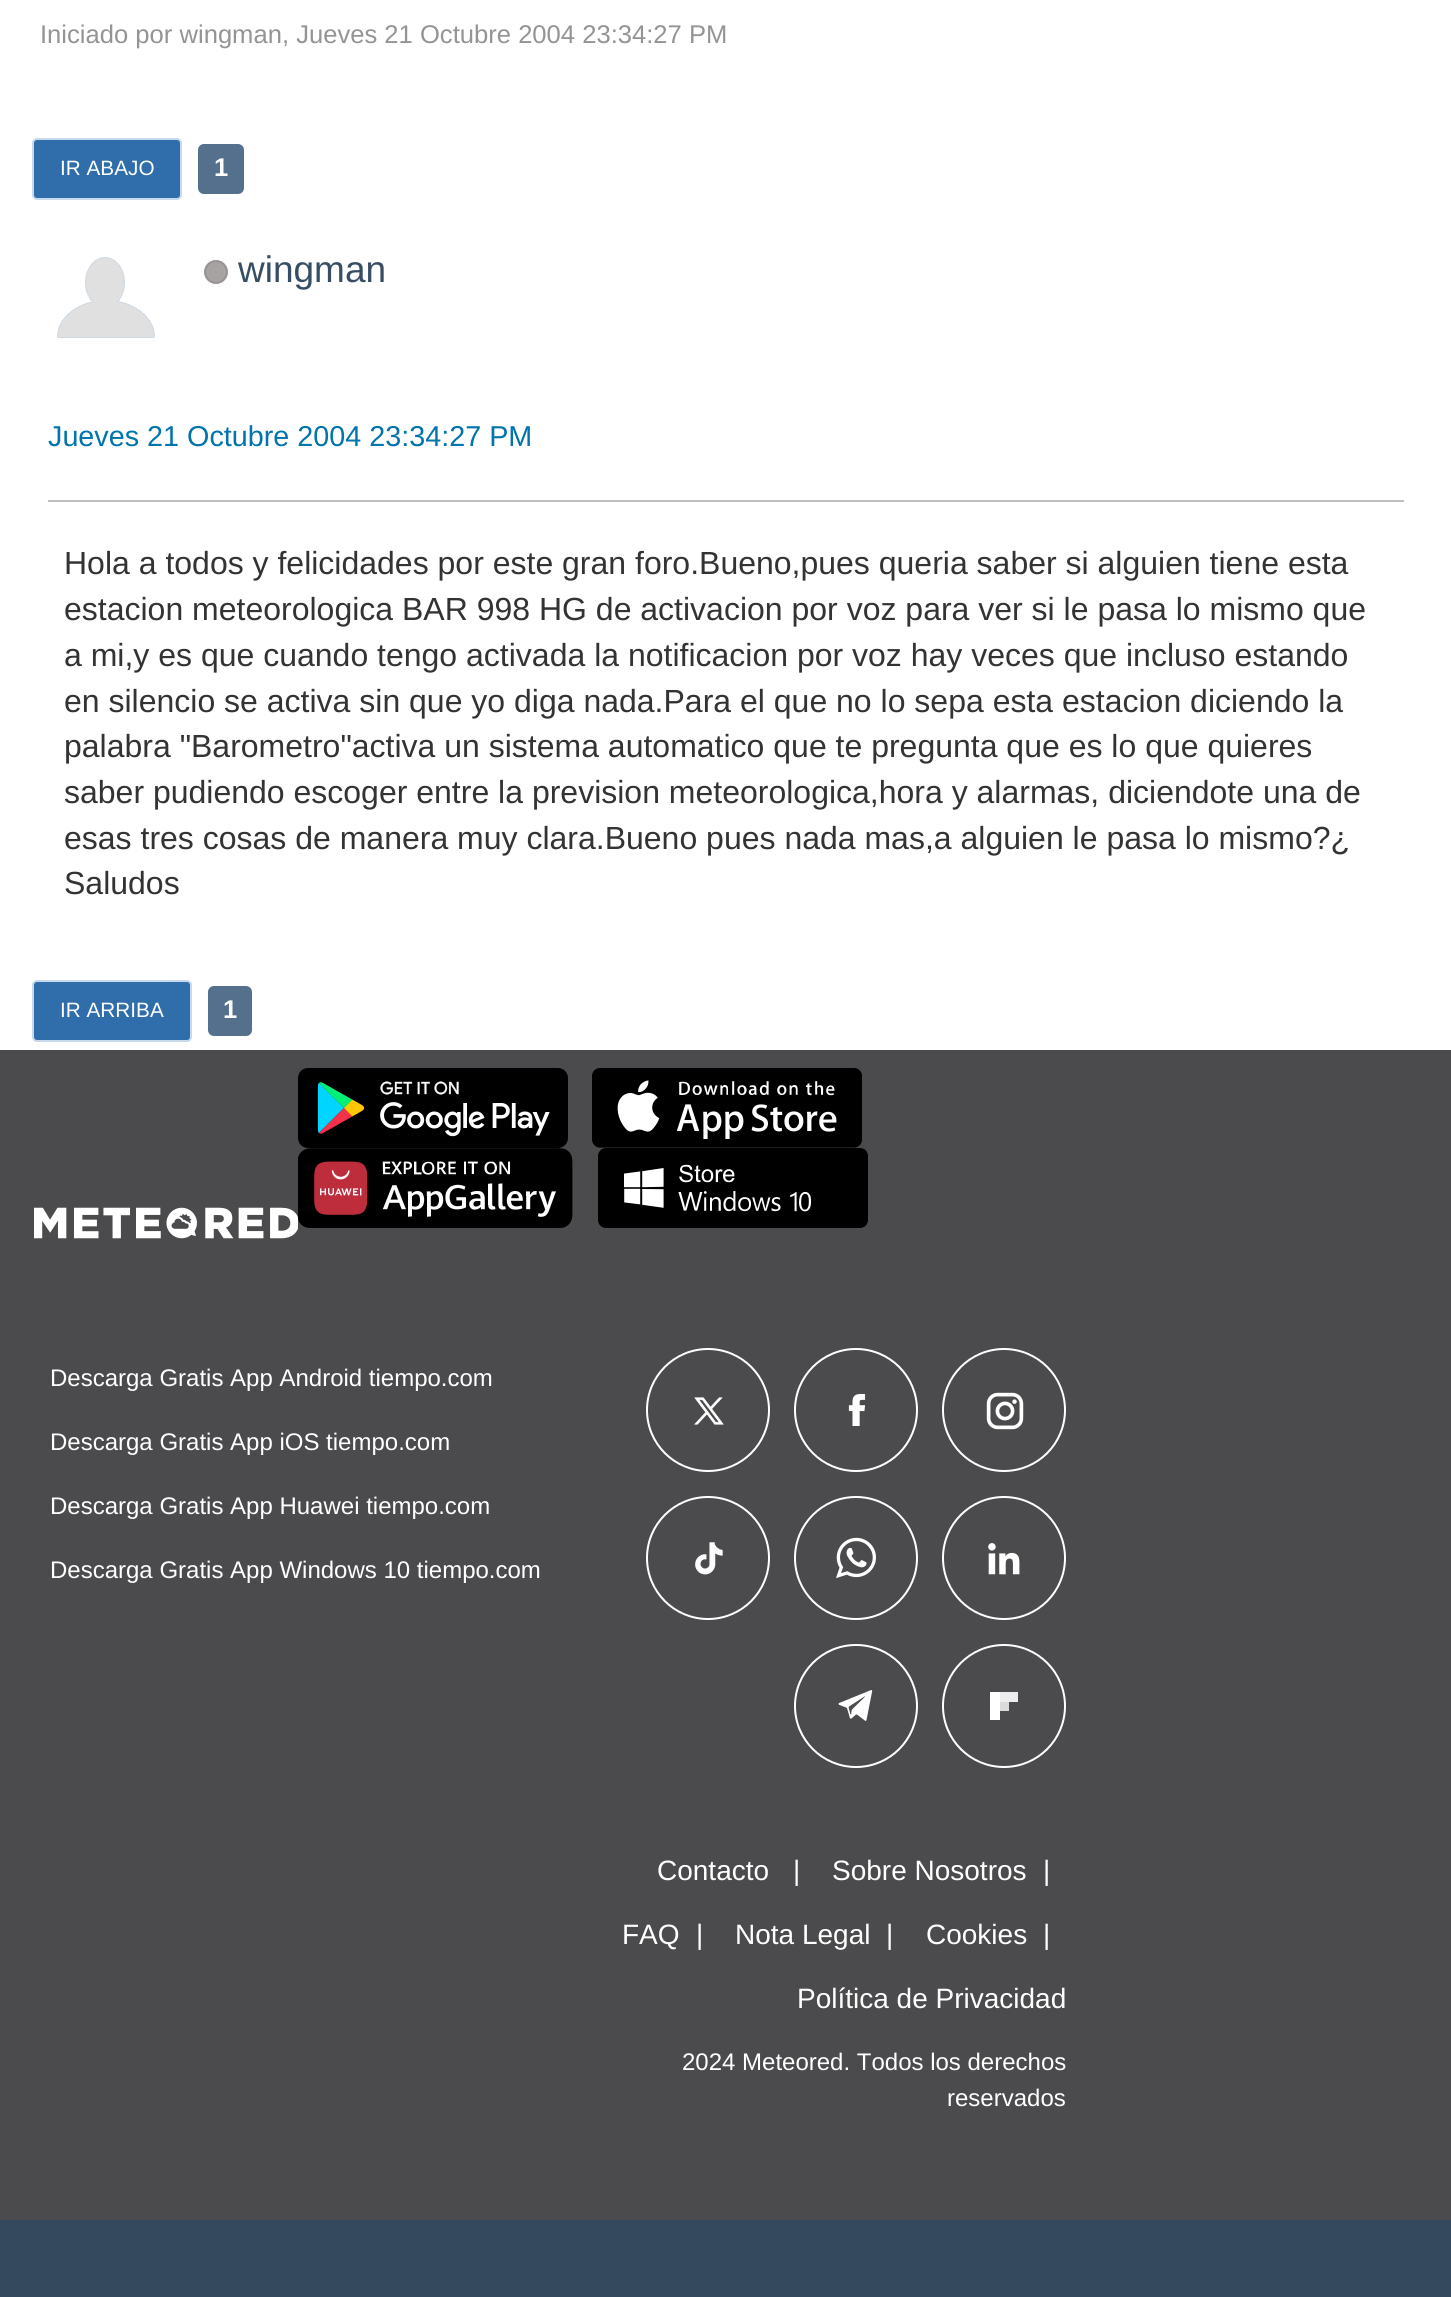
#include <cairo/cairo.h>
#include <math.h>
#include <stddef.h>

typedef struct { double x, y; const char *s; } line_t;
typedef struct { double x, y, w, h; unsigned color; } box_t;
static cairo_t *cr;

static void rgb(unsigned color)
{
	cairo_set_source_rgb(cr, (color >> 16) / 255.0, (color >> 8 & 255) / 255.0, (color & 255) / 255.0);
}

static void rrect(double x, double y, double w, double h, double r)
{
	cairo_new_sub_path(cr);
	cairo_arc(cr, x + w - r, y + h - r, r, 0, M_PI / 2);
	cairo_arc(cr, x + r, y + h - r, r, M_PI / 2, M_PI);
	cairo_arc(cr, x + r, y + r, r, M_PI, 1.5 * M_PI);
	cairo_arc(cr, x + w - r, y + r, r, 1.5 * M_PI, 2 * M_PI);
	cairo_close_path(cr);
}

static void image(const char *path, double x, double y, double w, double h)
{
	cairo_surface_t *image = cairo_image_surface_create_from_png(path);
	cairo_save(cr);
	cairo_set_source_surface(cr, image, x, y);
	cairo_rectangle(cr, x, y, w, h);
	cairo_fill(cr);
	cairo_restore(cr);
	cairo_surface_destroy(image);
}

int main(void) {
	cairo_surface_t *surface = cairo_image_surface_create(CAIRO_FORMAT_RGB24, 1451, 2297);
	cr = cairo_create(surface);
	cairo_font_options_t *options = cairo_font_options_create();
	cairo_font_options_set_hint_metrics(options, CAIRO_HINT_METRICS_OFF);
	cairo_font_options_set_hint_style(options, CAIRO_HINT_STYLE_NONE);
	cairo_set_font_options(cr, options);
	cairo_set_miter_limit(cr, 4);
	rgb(0xffffff);
	cairo_paint(cr);
	rgb(0x306eab);
	rrect(33, 139, 148, 60, 4);
	cairo_fill_preserve(cr);
	rgb(0xc7d9eb);
	cairo_stroke(cr);
	rgb(0x54708c);
	rrect(198, 144, 46, 50, 6);
	cairo_fill(cr);
	image("img/1.png", 57, 257, 98, 81);
	rgb(0xa8a3a3);
	cairo_arc(cr, 216, 272, 11, 0, 2 * M_PI);
	cairo_fill_preserve(cr);
	rgb(0x969292);
	cairo_stroke(cr);
	rgb(0xbfbfbf);
	cairo_rectangle(cr, 48, 500, 1356, 2);
	cairo_fill(cr);
	rgb(0x306eab);
	rrect(33, 981, 158, 60, 4);
	cairo_fill_preserve(cr);
	rgb(0xc7d9eb);
	cairo_stroke(cr);
	rgb(0x54708c);
	rrect(208, 986, 44, 50, 6);
	cairo_fill(cr);
	rgb(0x4b4b4d);
	cairo_rectangle(cr, 0, 1050, 1451, 1170);
	cairo_fill(cr);
	image("img/2.png", 34, 1207, 264, 32);
	image("img/3.png", 298, 1068, 270, 80);
	image("img/4.png", 592, 1068, 270, 80);
	image("img/5.png", 298, 1148, 275, 80);
	image("img/6.png", 598, 1148, 270, 80);
	cairo_arc(cr, 708, 1410, 61, 0, 2 * M_PI);
	rgb(0xffffff);
	cairo_stroke(cr);
	image("img/7.png", 694, 1397, 30, 28);
	cairo_arc(cr, 856, 1410, 61, 0, 2 * M_PI);
	cairo_stroke(cr);
	image("img/8.png", 848, 1394, 18, 32);
	cairo_arc(cr, 1004, 1410, 61, 0, 2 * M_PI);
	cairo_stroke(cr);
	image("img/9.png", 986, 1392, 38, 38);
	cairo_arc(cr, 708, 1558, 61, 0, 2 * M_PI);
	cairo_stroke(cr);
	image("img/10.png", 695, 1542, 28, 33);
	cairo_arc(cr, 856, 1558, 61, 0, 2 * M_PI);
	cairo_stroke(cr);
	image("img/11.png", 836, 1537, 40, 42);
	cairo_arc(cr, 1004, 1558, 61, 0, 2 * M_PI);
	cairo_stroke(cr);
	image("img/12.png", 988, 1543, 32, 32);
	cairo_arc(cr, 856, 1706, 61, 0, 2 * M_PI);
	cairo_stroke(cr);
	image("img/13.png", 838, 1690, 35, 31);
	cairo_arc(cr, 1004, 1706, 61, 0, 2 * M_PI);
	cairo_stroke(cr);
	{
		static const box_t items[] = {
			{1000, 1702, 9, 9, 0xdbdbdb},
			{1000, 1692, 18, 10, 0xededed},
			{990, 1692, 10, 28, 0xffffff},
			{0, 2220, 1451, 77, 0x34495e},
		};
		for (size_t i = 0; i < sizeof items / sizeof *items; i++) {
			rgb(items[i].color);
			cairo_rectangle(cr, items[i].x, items[i].y, items[i].w, items[i].h);
			cairo_fill(cr);
		}
	}
	cairo_select_font_face(cr, "Liberation Sans", CAIRO_FONT_SLANT_NORMAL, CAIRO_FONT_WEIGHT_NORMAL);
	cairo_set_font_size(cr, 25.6);
	rgb(0x949494);
	cairo_move_to(cr, 40, 43);
	cairo_show_text(cr, "Iniciado por wingman, Jueves 21 Octubre 2004 23:34:27 PM");
	cairo_set_font_size(cr, 20.75);
	rgb(0xffffff);
	cairo_move_to(cr, 60, 175);
	cairo_show_text(cr, "IR ABAJO");
	cairo_select_font_face(cr, "Liberation Sans", CAIRO_FONT_SLANT_NORMAL, CAIRO_FONT_WEIGHT_BOLD);
	cairo_set_font_size(cr, 25.6);
	cairo_move_to(cr, 214, 176);
	cairo_show_text(cr, "1");
	cairo_select_font_face(cr, "Liberation Sans", CAIRO_FONT_SLANT_NORMAL, CAIRO_FONT_WEIGHT_NORMAL);
	cairo_set_font_size(cr, 37);
	rgb(0x364d63);
	cairo_move_to(cr, 238, 282);
	cairo_show_text(cr, "wingman");
	cairo_set_font_size(cr, 28.75);
	rgb(0x0074ad);
	cairo_move_to(cr, 48, 446);
	cairo_show_text(cr, "Jueves 21 Octubre 2004 23:34:27 PM");
	cairo_set_font_size(cr, 32);
	rgb(0x333333);
	{
		static const line_t items[] = {
			{64, 574, "Hola a todos y felicidades por este gran foro.Bueno,pues queria saber si alguien tiene esta"},
			{64, 620, "estacion meteorologica BAR 998 HG de activacion por voz para ver si le pasa lo mismo que"},
			{64, 666, "a mi,y es que cuando tengo activada la notificacion por voz hay veces que incluso estando"},
			{64, 712, "en silencio se activa sin que yo diga nada.Para el que no lo sepa esta estacion diciendo la"},
			{64, 757, "palabra \"Barometro\"activa un sistema automatico que te pregunta que es lo que quieres"},
			{64, 803, "saber pudiendo escoger entre la prevision meteorologica,hora y alarmas, diciendote una de"},
			{64, 849, "esas tres cosas de manera muy clara.Bueno pues nada mas,a alguien le pasa lo mismo?¿"},
			{64, 894, "Saludos"},
		};
		for (size_t i = 0; i < sizeof items / sizeof *items; i++) {
			cairo_move_to(cr, items[i].x, items[i].y);
			cairo_show_text(cr, items[i].s);
		}
	}
	cairo_set_font_size(cr, 20.75);
	rgb(0xffffff);
	cairo_move_to(cr, 60, 1017);
	cairo_show_text(cr, "IR ARRIBA");
	cairo_select_font_face(cr, "Liberation Sans", CAIRO_FONT_SLANT_NORMAL, CAIRO_FONT_WEIGHT_BOLD);
	cairo_set_font_size(cr, 25.6);
	cairo_move_to(cr, 223, 1018);
	cairo_show_text(cr, "1");
	cairo_select_font_face(cr, "Liberation Sans", CAIRO_FONT_SLANT_NORMAL, CAIRO_FONT_WEIGHT_NORMAL);
	cairo_set_font_size(cr, 24);
	{
		static const line_t items[] = {
			{50, 1386, "Descarga Gratis App Android tiempo.com"},
			{50, 1450, "Descarga Gratis App iOS tiempo.com"},
			{50, 1514, "Descarga Gratis App Huawei tiempo.com"},
			{50, 1578, "Descarga Gratis App Windows 10 tiempo.com"},
		};
		for (size_t i = 0; i < sizeof items / sizeof *items; i++) {
			cairo_move_to(cr, items[i].x, items[i].y);
			cairo_show_text(cr, items[i].s);
		}
	}
	cairo_set_font_size(cr, 28);
	{
		static const line_t items[] = {
			{657, 1880, "Contacto"},
			{793, 1880, "|"},
			{832, 1880, "Sobre Nosotros"},
			{1043, 1880, "|"},
			{622, 1944, "FAQ"},
			{696, 1944, "|"},
			{735, 1944, "Nota Legal"},
			{886, 1944, "|"},
			{926, 1944, "Cookies"},
			{1043, 1944, "|"},
			{797, 2008, "Política de Privacidad"},
		};
		for (size_t i = 0; i < sizeof items / sizeof *items; i++) {
			cairo_move_to(cr, items[i].x, items[i].y);
			cairo_show_text(cr, items[i].s);
		}
	}
	cairo_set_font_size(cr, 24);
	cairo_move_to(cr, 682, 2070);
	cairo_show_text(cr, "2024 Meteored. Todos los derechos");
	cairo_move_to(cr, 947, 2106);
	cairo_show_text(cr, "reservados");
	cairo_surface_write_to_png(surface, "page.png");
	cairo_font_options_destroy(options);
	cairo_destroy(cr);
	cairo_surface_destroy(surface);
	return 0;
}
